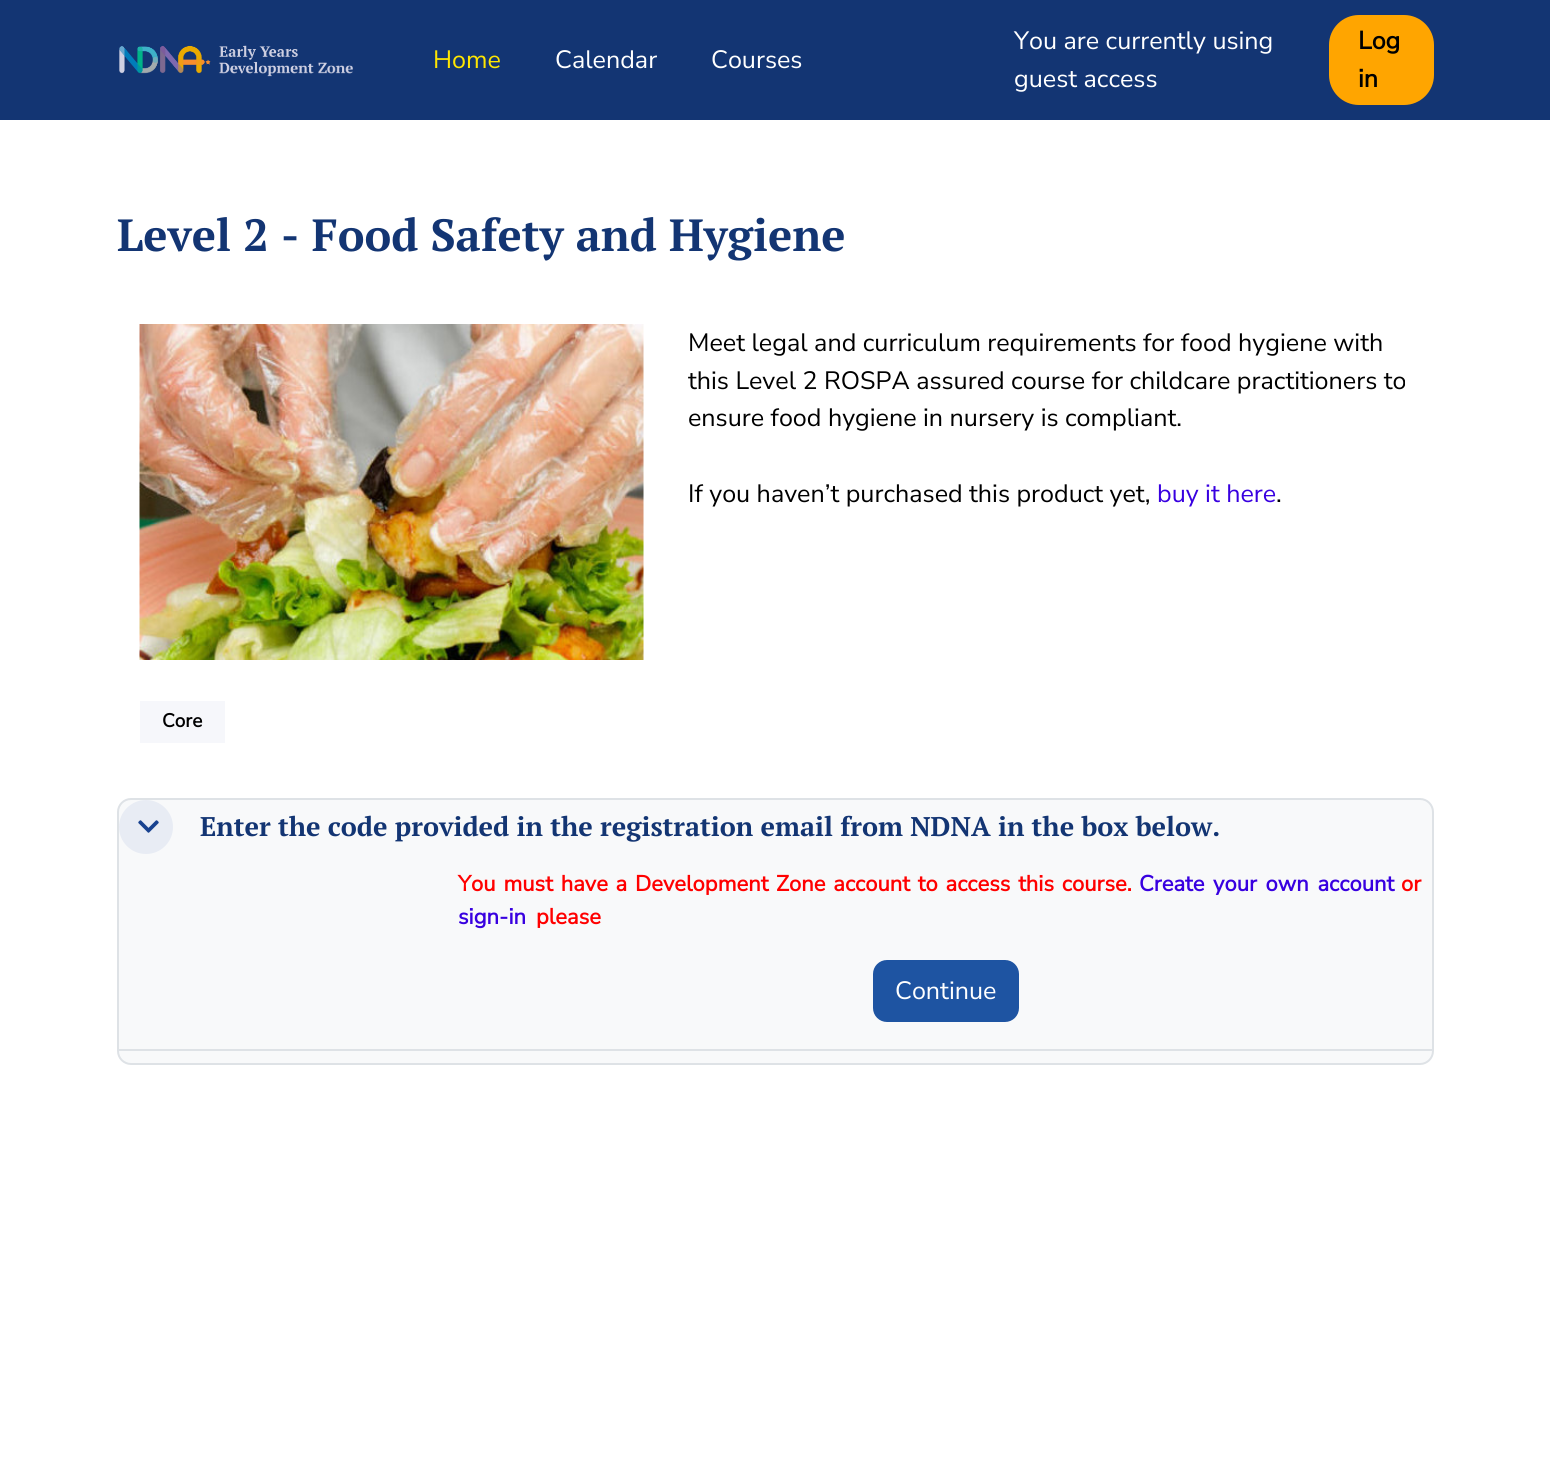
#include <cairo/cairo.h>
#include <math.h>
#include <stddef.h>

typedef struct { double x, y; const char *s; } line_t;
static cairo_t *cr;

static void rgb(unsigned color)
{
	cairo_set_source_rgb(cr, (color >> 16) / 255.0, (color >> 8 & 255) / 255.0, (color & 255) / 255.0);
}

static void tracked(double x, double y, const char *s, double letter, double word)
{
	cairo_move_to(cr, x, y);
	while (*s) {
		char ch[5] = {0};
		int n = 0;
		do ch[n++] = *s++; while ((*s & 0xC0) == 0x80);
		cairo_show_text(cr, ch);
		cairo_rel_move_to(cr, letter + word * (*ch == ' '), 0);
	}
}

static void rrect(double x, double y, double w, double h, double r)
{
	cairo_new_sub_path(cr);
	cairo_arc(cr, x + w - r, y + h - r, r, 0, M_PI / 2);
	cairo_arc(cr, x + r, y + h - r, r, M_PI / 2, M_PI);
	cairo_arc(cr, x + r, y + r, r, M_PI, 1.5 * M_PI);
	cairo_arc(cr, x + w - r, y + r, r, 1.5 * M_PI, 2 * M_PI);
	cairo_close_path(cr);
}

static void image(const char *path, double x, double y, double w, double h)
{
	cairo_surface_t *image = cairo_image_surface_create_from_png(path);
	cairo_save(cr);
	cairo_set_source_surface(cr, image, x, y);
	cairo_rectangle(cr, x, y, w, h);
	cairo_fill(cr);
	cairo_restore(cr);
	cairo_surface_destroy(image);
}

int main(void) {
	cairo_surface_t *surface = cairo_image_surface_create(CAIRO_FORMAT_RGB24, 1550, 1467);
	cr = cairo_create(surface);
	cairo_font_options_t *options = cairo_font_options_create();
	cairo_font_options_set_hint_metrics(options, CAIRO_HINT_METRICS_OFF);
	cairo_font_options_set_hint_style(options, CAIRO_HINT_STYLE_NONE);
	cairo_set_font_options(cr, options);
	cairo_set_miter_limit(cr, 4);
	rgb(0xffffff);
	cairo_paint(cr);
	rgb(0x133573);
	cairo_rectangle(cr, 0, 0, 1550, 120);
	cairo_fill(cr);
	image("img/1.png", 119, 45, 234, 32);
	rgb(0xffa500);
	rrect(1329, 15, 105, 90, 30);
	cairo_fill(cr);
	image("img/2.png", 139, 324, 505, 336);
	rgb(0xf6f7fb);
	cairo_rectangle(cr, 140, 701, 85, 42);
	cairo_fill(cr);
	rgb(0xf8f9fa);
	rrect(118, 799, 1315, 265, 13);
	cairo_fill_preserve(cr);
	rgb(0xdee2e6);
	cairo_stroke(cr);
	cairo_rectangle(cr, 119, 1049, 1314, 2);
	cairo_fill(cr);
	rgb(0xe8ecf4);
	cairo_arc(cr, 146, 827, 27, 0, 2 * M_PI);
	cairo_fill(cr);
	image("img/3.png", 138, 820, 21, 13);
	rgb(0x1e54a2);
	rrect(874, 961, 144, 60, 13);
	cairo_fill_preserve(cr);
	cairo_stroke(cr);
	cairo_select_font_face(cr, "Nunito Sans", CAIRO_FONT_SLANT_NORMAL, CAIRO_FONT_WEIGHT_NORMAL);
	cairo_set_font_size(cr, 25.1);
	rgb(0xffe600);
	cairo_move_to(cr, 433, 68);
	cairo_show_text(cr, "Home");
	rgb(0xffffff);
	{
		static const line_t items[] = {
			{555, 68, "Calendar"},
			{711, 68, "Courses"},
			{1014, 49, "You are currently using"},
		};
		for (size_t i = 0; i < sizeof items / sizeof *items; i++) {
			cairo_move_to(cr, items[i].x, items[i].y);
			cairo_show_text(cr, items[i].s);
		}
	}
	cairo_select_font_face(cr, "Nunito Sans", CAIRO_FONT_SLANT_NORMAL, CAIRO_FONT_WEIGHT_BOLD);
	rgb(0x000000);
	cairo_move_to(cr, 1358, 49);
	cairo_show_text(cr, "Log");
	cairo_move_to(cr, 1358, 87);
	cairo_show_text(cr, "in");
	cairo_select_font_face(cr, "Nunito Sans", CAIRO_FONT_SLANT_NORMAL, CAIRO_FONT_WEIGHT_NORMAL);
	rgb(0xffffff);
	cairo_move_to(cr, 1014, 87);
	cairo_show_text(cr, "guest access");
	cairo_select_font_face(cr, "PT Serif", CAIRO_FONT_SLANT_NORMAL, CAIRO_FONT_WEIGHT_BOLD);
	cairo_set_font_size(cr, 45.1);
	rgb(0x133573);
	cairo_move_to(cr, 117, 251);
	cairo_show_text(cr, "Level 2 - Food Safety and Hygiene");
	cairo_select_font_face(cr, "Nunito Sans", CAIRO_FONT_SLANT_NORMAL, CAIRO_FONT_WEIGHT_NORMAL);
	cairo_set_font_size(cr, 25.1);
	rgb(0x000000);
	{
		static const line_t items[] = {
			{688, 351, "Meet legal and curriculum requirements for food hygiene with"},
			{688, 389, "this Level 2 ROSPA assured course for childcare practitioners to"},
			{688, 426, "ensure food hygiene in nursery is compliant."},
			{688, 502, "If you haven’t purchased this product yet,"},
		};
		for (size_t i = 0; i < sizeof items / sizeof *items; i++) {
			cairo_move_to(cr, items[i].x, items[i].y);
			cairo_show_text(cr, items[i].s);
		}
	}
	rgb(0x3800e0);
	cairo_move_to(cr, 1157, 502);
	cairo_show_text(cr, "buy it here");
	rgb(0x000000);
	cairo_move_to(cr, 1276, 502);
	cairo_show_text(cr, ".");
	cairo_select_font_face(cr, "Nunito Sans", CAIRO_FONT_SLANT_NORMAL, CAIRO_FONT_WEIGHT_BOLD);
	cairo_set_font_size(cr, 19);
	cairo_move_to(cr, 162, 727);
	cairo_show_text(cr, "Core");
	cairo_select_font_face(cr, "PT Serif", CAIRO_FONT_SLANT_NORMAL, CAIRO_FONT_WEIGHT_BOLD);
	cairo_set_font_size(cr, 27);
	rgb(0x133573);
	cairo_move_to(cr, 200, 836);
	cairo_show_text(cr, "Enter the code provided in the registration email from NDNA in the box below.");
	cairo_select_font_face(cr, "Nunito Sans", CAIRO_FONT_SLANT_NORMAL, CAIRO_FONT_WEIGHT_BOLD);
	cairo_set_font_size(cr, 22);
	rgb(0xff0000);
	tracked(458, 891, "You must have a Development Zone account to access this course.", 0, 2.1);
	rgb(0x3800e0);
	tracked(1139, 891, "Create your own account", 0, 3);
	rgb(0xff0000);
	cairo_move_to(cr, 1401, 891);
	cairo_show_text(cr, "or");
	rgb(0x3800e0);
	cairo_move_to(cr, 458, 924);
	cairo_show_text(cr, "sign-in");
	rgb(0xff0000);
	cairo_move_to(cr, 536, 924);
	cairo_show_text(cr, "please");
	cairo_select_font_face(cr, "Nunito Sans", CAIRO_FONT_SLANT_NORMAL, CAIRO_FONT_WEIGHT_NORMAL);
	cairo_set_font_size(cr, 25.1);
	rgb(0xffffff);
	cairo_move_to(cr, 895, 999);
	cairo_show_text(cr, "Continue");
	cairo_surface_write_to_png(surface, "page.png");
	cairo_font_options_destroy(options);
	cairo_destroy(cr);
	cairo_surface_destroy(surface);
	return 0;
}
